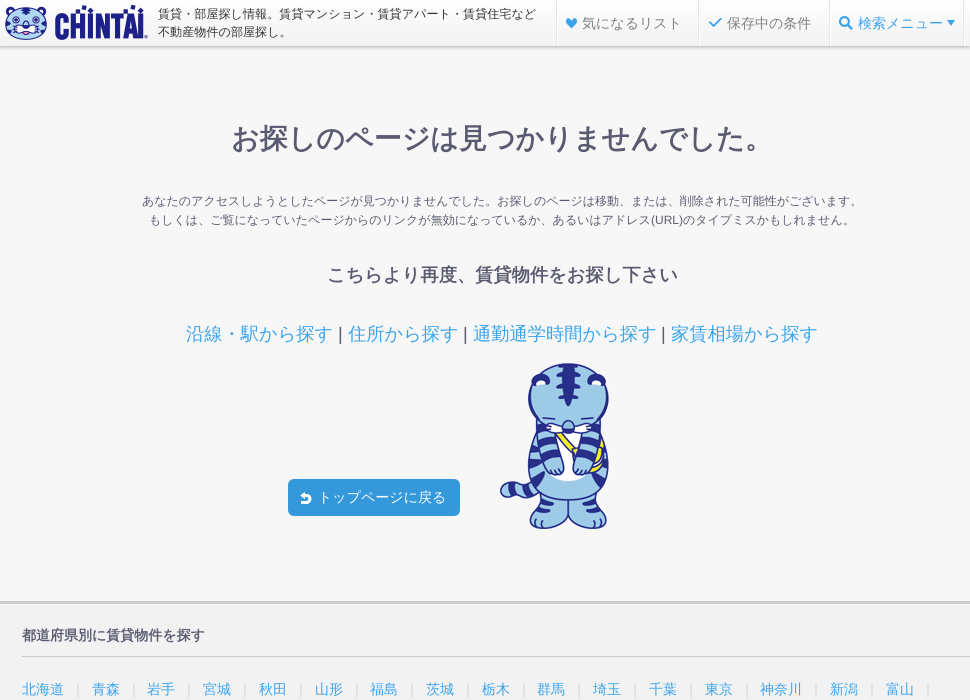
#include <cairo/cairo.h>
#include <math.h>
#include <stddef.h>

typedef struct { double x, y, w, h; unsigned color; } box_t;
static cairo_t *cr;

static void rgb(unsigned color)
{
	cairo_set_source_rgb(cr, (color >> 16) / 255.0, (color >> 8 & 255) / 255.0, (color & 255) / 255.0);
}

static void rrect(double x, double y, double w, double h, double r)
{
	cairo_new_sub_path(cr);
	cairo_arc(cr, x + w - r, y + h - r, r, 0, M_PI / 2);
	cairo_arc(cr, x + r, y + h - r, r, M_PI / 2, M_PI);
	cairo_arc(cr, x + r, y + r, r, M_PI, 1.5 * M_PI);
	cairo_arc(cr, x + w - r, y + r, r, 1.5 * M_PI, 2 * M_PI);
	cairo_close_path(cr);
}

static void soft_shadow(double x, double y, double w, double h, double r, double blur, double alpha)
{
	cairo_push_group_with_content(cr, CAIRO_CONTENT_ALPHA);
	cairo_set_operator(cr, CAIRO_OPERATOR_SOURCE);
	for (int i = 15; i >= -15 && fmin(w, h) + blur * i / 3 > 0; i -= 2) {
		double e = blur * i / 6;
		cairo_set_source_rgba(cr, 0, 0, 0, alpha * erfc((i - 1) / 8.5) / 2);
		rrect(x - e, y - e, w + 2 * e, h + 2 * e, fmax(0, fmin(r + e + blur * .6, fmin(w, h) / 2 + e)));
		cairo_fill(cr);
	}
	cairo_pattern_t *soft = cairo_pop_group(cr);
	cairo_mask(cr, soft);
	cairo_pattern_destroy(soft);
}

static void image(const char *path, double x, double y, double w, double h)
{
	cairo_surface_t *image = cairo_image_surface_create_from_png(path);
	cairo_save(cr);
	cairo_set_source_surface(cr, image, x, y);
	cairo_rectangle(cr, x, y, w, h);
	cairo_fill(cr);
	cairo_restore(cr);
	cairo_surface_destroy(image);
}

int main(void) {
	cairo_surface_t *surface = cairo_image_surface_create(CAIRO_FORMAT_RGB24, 970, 700);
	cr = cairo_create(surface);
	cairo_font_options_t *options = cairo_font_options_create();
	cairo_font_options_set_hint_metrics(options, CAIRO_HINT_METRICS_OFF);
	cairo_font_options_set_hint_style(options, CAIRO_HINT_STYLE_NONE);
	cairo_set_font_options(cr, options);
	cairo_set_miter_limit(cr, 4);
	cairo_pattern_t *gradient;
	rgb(0xf7f7f7);
	cairo_paint(cr);
	rgb(0x000000);
	soft_shadow(0, 2, 970, 46, 0, 1.5, 0.2);
	gradient = cairo_pattern_create_linear(485, 0, 485, 46);
	cairo_pattern_add_color_stop_rgba(gradient, 0, 0.996, 0.996, 0.996, 1);
	cairo_pattern_add_color_stop_rgba(gradient, 1, 0.949, 0.949, 0.949, 1);
	cairo_set_source(cr, gradient);
	cairo_pattern_destroy(gradient);
	cairo_rectangle(cr, 0, 0, 970, 46);
	cairo_fill(cr);
	image("img/1.png", 5, 5, 143, 35);
	{
		static const box_t items[] = {
			{964, 0, 1, 46, 0xffffff},
			{556, 0, 1, 46, 0xe6e6e6},
			{698, 0, 1, 46, 0xe6e6e6},
			{557, 0, 1, 46, 0xffffff},
		};
		for (size_t i = 0; i < sizeof items / sizeof *items; i++) {
			rgb(items[i].color);
			cairo_rectangle(cr, items[i].x, items[i].y, items[i].w, items[i].h);
			cairo_fill(cr);
		}
	}
	image("img/2.png", 566, 18, 11, 11);
	rgb(0xe6e6e6);
	cairo_rectangle(cr, 829, 0, 1, 46);
	cairo_fill(cr);
	rgb(0xffffff);
	cairo_rectangle(cr, 699, 0, 1, 46);
	cairo_fill(cr);
	image("img/3.png", 708, 18, 14, 9);
	rgb(0xe6e6e6);
	cairo_rectangle(cr, 963, 0, 1, 46);
	cairo_fill(cr);
	rgb(0xffffff);
	cairo_rectangle(cr, 830, 0, 1, 46);
	cairo_fill(cr);
	image("img/4.png", 839, 16, 14, 14);
	rgb(0x3ba3ed);
	cairo_new_path(cr);
	cairo_move_to(cr, 947, 20);
	cairo_line_to(cr, 955, 20);
	cairo_line_to(cr, 951, 26);
	cairo_close_path(cr);
	cairo_fill(cr);
	rgb(0x3498db);
	rrect(288, 479, 172, 37, 6);
	cairo_fill(cr);
	image("img/5.png", 300, 492, 12, 12);
	image("img/6.png", 500, 363, 109, 166);
	{
		static const box_t items[] = {
			{0, 604, 970, 96, 0xf2f2f2},
			{0, 601, 970, 3, 0xcccccc},
			{22, 656, 948, 1, 0xcccccc},
		};
		for (size_t i = 0; i < sizeof items / sizeof *items; i++) {
			rgb(items[i].color);
			cairo_rectangle(cr, items[i].x, items[i].y, items[i].w, items[i].h);
			cairo_fill(cr);
		}
	}
	cairo_select_font_face(cr, "WenQuanYi Zen Hei Medium", CAIRO_FONT_SLANT_NORMAL, CAIRO_FONT_WEIGHT_NORMAL);
	cairo_set_font_size(cr, 12.1);
	rgb(0x333333);
	cairo_move_to(cr, 158, 18);
	cairo_show_text(cr, "賃貸・部屋探し情報。賃貸マンション・賃貸アパート・賃貸住宅など");
	cairo_move_to(cr, 158, 36);
	cairo_show_text(cr, "不動産物件の部屋探し。");
	cairo_set_font_size(cr, 14);
	rgb(0x808080);
	cairo_move_to(cr, 582, 28);
	cairo_show_text(cr, "気になるリスト");
	cairo_move_to(cr, 727, 28);
	cairo_show_text(cr, "保存中の条件");
	rgb(0x3ba4ee);
	cairo_move_to(cr, 858, 28);
	cairo_show_text(cr, "検索メニュー");
	cairo_select_font_face(cr, "WenQuanYi Zen Hei", CAIRO_FONT_SLANT_NORMAL, CAIRO_FONT_WEIGHT_BOLD);
	cairo_set_font_size(cr, 28);
	rgb(0x5a5b71);
	cairo_move_to(cr, 231, 148);
	cairo_show_text(cr, "お探しのページは見つかりませんでした。");
	cairo_select_font_face(cr, "WenQuanYi Zen Hei Medium", CAIRO_FONT_SLANT_NORMAL, CAIRO_FONT_WEIGHT_NORMAL);
	cairo_set_font_size(cr, 12);
	cairo_move_to(cr, 142, 205);
	cairo_show_text(cr, "あなたのアクセスしようとしたページが見つかりませんでした。お探しのページは移動、または、削除された可能性がございます。");
	cairo_move_to(cr, 149, 224);
	cairo_show_text(cr, "もしくは、ご覧になっていたページからのリンクが無効になっているか、あるいはアドレス");
	cairo_select_font_face(cr, "Liberation Sans", CAIRO_FONT_SLANT_NORMAL, CAIRO_FONT_WEIGHT_NORMAL);
	cairo_move_to(cr, 651, 224);
	cairo_show_text(cr, "(URL)");
	cairo_select_font_face(cr, "WenQuanYi Zen Hei Medium", CAIRO_FONT_SLANT_NORMAL, CAIRO_FONT_WEIGHT_NORMAL);
	cairo_move_to(cr, 683, 224);
	cairo_show_text(cr, "のタイプミスかもしれません。");
	cairo_select_font_face(cr, "WenQuanYi Zen Hei", CAIRO_FONT_SLANT_NORMAL, CAIRO_FONT_WEIGHT_BOLD);
	cairo_set_font_size(cr, 18.25);
	cairo_move_to(cr, 327, 281);
	cairo_show_text(cr, "こちらより再度、賃貸物件をお探し下さい");
	cairo_select_font_face(cr, "WenQuanYi Zen Hei Medium", CAIRO_FONT_SLANT_NORMAL, CAIRO_FONT_WEIGHT_NORMAL);
	rgb(0x3ba4ee);
	cairo_move_to(cr, 186, 340);
	cairo_show_text(cr, "沿線・駅から探す");
	cairo_select_font_face(cr, "Liberation Sans", CAIRO_FONT_SLANT_NORMAL, CAIRO_FONT_WEIGHT_NORMAL);
	rgb(0x5a5b71);
	cairo_move_to(cr, 338, 340);
	cairo_show_text(cr, "|");
	cairo_select_font_face(cr, "WenQuanYi Zen Hei Medium", CAIRO_FONT_SLANT_NORMAL, CAIRO_FONT_WEIGHT_NORMAL);
	rgb(0x3ba4ee);
	cairo_move_to(cr, 348, 340);
	cairo_show_text(cr, "住所から探す");
	cairo_select_font_face(cr, "Liberation Sans", CAIRO_FONT_SLANT_NORMAL, CAIRO_FONT_WEIGHT_NORMAL);
	rgb(0x5a5b71);
	cairo_move_to(cr, 463, 340);
	cairo_show_text(cr, "|");
	cairo_select_font_face(cr, "WenQuanYi Zen Hei Medium", CAIRO_FONT_SLANT_NORMAL, CAIRO_FONT_WEIGHT_NORMAL);
	rgb(0x3ba4ee);
	cairo_move_to(cr, 473, 340);
	cairo_show_text(cr, "通勤通学時間から探す");
	cairo_select_font_face(cr, "Liberation Sans", CAIRO_FONT_SLANT_NORMAL, CAIRO_FONT_WEIGHT_NORMAL);
	rgb(0x5a5b71);
	cairo_move_to(cr, 661, 340);
	cairo_show_text(cr, "|");
	cairo_select_font_face(cr, "WenQuanYi Zen Hei Medium", CAIRO_FONT_SLANT_NORMAL, CAIRO_FONT_WEIGHT_NORMAL);
	rgb(0x3ba4ee);
	cairo_move_to(cr, 671, 340);
	cairo_show_text(cr, "家賃相場から探す");
	cairo_set_font_size(cr, 14);
	rgb(0xffffff);
	cairo_move_to(cr, 318, 502);
	cairo_show_text(cr, "トップページに戻る");
	cairo_select_font_face(cr, "WenQuanYi Zen Hei", CAIRO_FONT_SLANT_NORMAL, CAIRO_FONT_WEIGHT_BOLD);
	rgb(0x5a5b71);
	cairo_move_to(cr, 22, 640);
	cairo_show_text(cr, "都道府県別に賃貸物件を探す");
	cairo_select_font_face(cr, "WenQuanYi Zen Hei Medium", CAIRO_FONT_SLANT_NORMAL, CAIRO_FONT_WEIGHT_NORMAL);
	rgb(0x3ba4ee);
	cairo_move_to(cr, 22, 694);
	cairo_show_text(cr, "北海道");
	rgb(0xcccccc);
	cairo_move_to(cr, 71, 694);
	cairo_show_text(cr, "｜");
	rgb(0x3ba4ee);
	cairo_move_to(cr, 92, 694);
	cairo_show_text(cr, "青森");
	rgb(0xcccccc);
	cairo_move_to(cr, 127, 694);
	cairo_show_text(cr, "｜");
	rgb(0x3ba4ee);
	cairo_move_to(cr, 147, 694);
	cairo_show_text(cr, "岩手");
	rgb(0xcccccc);
	cairo_move_to(cr, 182, 694);
	cairo_show_text(cr, "｜");
	rgb(0x3ba4ee);
	cairo_move_to(cr, 203, 694);
	cairo_show_text(cr, "宮城");
	rgb(0xcccccc);
	cairo_move_to(cr, 238, 694);
	cairo_show_text(cr, "｜");
	rgb(0x3ba4ee);
	cairo_move_to(cr, 259, 694);
	cairo_show_text(cr, "秋田");
	rgb(0xcccccc);
	cairo_move_to(cr, 294, 694);
	cairo_show_text(cr, "｜");
	rgb(0x3ba4ee);
	cairo_move_to(cr, 315, 694);
	cairo_show_text(cr, "山形");
	rgb(0xcccccc);
	cairo_move_to(cr, 350, 694);
	cairo_show_text(cr, "｜");
	rgb(0x3ba4ee);
	cairo_move_to(cr, 370, 694);
	cairo_show_text(cr, "福島");
	rgb(0xcccccc);
	cairo_move_to(cr, 405, 694);
	cairo_show_text(cr, "｜");
	rgb(0x3ba4ee);
	cairo_move_to(cr, 426, 694);
	cairo_show_text(cr, "茨城");
	rgb(0xcccccc);
	cairo_move_to(cr, 461, 694);
	cairo_show_text(cr, "｜");
	rgb(0x3ba4ee);
	cairo_move_to(cr, 482, 694);
	cairo_show_text(cr, "栃木");
	rgb(0xcccccc);
	cairo_move_to(cr, 517, 694);
	cairo_show_text(cr, "｜");
	rgb(0x3ba4ee);
	cairo_move_to(cr, 537, 694);
	cairo_show_text(cr, "群馬");
	rgb(0xcccccc);
	cairo_move_to(cr, 572, 694);
	cairo_show_text(cr, "｜");
	rgb(0x3ba4ee);
	cairo_move_to(cr, 593, 694);
	cairo_show_text(cr, "埼玉");
	rgb(0xcccccc);
	cairo_move_to(cr, 628, 694);
	cairo_show_text(cr, "｜");
	rgb(0x3ba4ee);
	cairo_move_to(cr, 649, 694);
	cairo_show_text(cr, "千葉");
	rgb(0xcccccc);
	cairo_move_to(cr, 684, 694);
	cairo_show_text(cr, "｜");
	rgb(0x3ba4ee);
	cairo_move_to(cr, 705, 694);
	cairo_show_text(cr, "東京");
	rgb(0xcccccc);
	cairo_move_to(cr, 740, 694);
	cairo_show_text(cr, "｜");
	rgb(0x3ba4ee);
	cairo_move_to(cr, 760, 694);
	cairo_show_text(cr, "神奈川");
	rgb(0xcccccc);
	cairo_move_to(cr, 809, 694);
	cairo_show_text(cr, "｜");
	rgb(0x3ba4ee);
	cairo_move_to(cr, 830, 694);
	cairo_show_text(cr, "新潟");
	rgb(0xcccccc);
	cairo_move_to(cr, 865, 694);
	cairo_show_text(cr, "｜");
	rgb(0x3ba4ee);
	cairo_move_to(cr, 886, 694);
	cairo_show_text(cr, "富山");
	rgb(0xcccccc);
	cairo_move_to(cr, 921, 694);
	cairo_show_text(cr, "｜");
	cairo_surface_write_to_png(surface, "page.png");
	cairo_font_options_destroy(options);
	cairo_destroy(cr);
	cairo_surface_destroy(surface);
	return 0;
}
